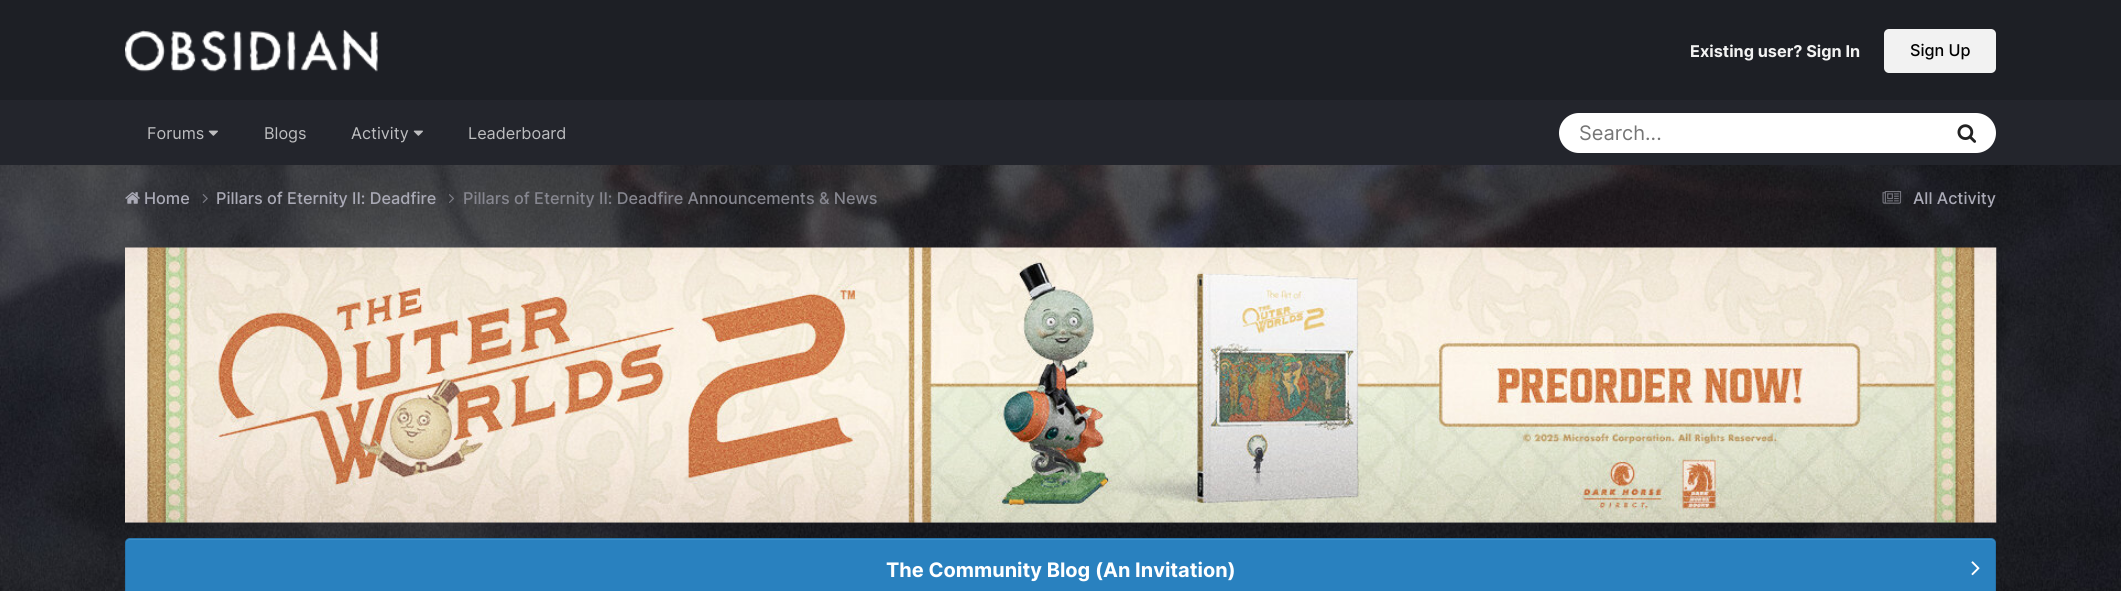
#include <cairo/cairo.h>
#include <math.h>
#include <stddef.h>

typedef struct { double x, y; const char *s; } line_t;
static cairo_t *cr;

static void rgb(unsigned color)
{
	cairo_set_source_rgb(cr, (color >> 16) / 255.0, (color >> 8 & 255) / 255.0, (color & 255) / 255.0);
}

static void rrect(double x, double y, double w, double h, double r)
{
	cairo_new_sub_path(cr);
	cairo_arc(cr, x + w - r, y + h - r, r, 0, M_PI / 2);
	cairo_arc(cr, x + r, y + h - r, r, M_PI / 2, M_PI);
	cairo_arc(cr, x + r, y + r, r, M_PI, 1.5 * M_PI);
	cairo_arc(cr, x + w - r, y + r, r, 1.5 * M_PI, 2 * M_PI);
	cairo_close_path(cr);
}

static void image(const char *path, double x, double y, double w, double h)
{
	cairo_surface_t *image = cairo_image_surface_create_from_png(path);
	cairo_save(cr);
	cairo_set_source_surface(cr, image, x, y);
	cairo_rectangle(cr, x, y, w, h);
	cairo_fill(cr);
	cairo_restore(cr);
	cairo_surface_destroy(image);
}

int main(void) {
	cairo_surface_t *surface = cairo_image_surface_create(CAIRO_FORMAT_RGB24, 2121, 591);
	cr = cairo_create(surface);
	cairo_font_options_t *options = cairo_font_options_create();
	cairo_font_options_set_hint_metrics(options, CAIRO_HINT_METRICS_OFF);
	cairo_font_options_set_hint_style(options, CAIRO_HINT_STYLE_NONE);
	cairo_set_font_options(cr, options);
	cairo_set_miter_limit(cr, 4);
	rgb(0xffffff);
	cairo_paint(cr);
	rgb(0x1d1f25);
	cairo_rectangle(cr, 0, 0, 2121, 100);
	cairo_fill(cr);
	image("img/1.png", 125, 30, 253, 42);
	rgb(0xf2f2f2);
	rrect(1884, 29, 112, 44, 5);
	cairo_fill(cr);
	rgb(0x23252c);
	cairo_rectangle(cr, 0, 100, 2121, 65);
	cairo_fill(cr);
	image("img/2.png", 208, 130, 10, 6);
	image("img/2.png", 413, 130, 10, 6);
	rgb(0xffffff);
	rrect(1559, 113, 437, 40, 20);
	cairo_fill(cr);
	image("img/3.png", 1957, 124, 20, 19);
	image("img/4.png", 0, 165, 2121, 426);
	image("img/5.png", 125, 192, 15, 12);
	image("img/6.png", 202, 194, 6, 9);
	image("img/7.png", 449, 194, 5, 9);
	image("img/8.png", 1882, 191, 20, 13);
	rgb(0x2e3039);
	cairo_rectangle(cr, 125, 522, 1871, 1);
	cairo_fill(cr);
	image("img/9.png", 125, 247, 1872, 276);
	rgb(0x2981bf);
	rrect(125, 538, 1871, 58, 5);
	cairo_fill(cr);
	rgb(0x3e8ec5);
	cairo_new_path(cr);
	cairo_move_to(cr, 130, 540);
	cairo_line_to(cr, 1991, 540);
	cairo_curve_to(cr, 1993, 540, 1995, 542, 1995, 544);
	cairo_line_to(cr, 1995, 543);
	cairo_curve_to(cr, 1995, 541, 1993, 539, 1991, 539);
	cairo_line_to(cr, 130, 539);
	cairo_curve_to(cr, 128, 539, 126, 541, 126, 543);
	cairo_line_to(cr, 126, 544);
	cairo_curve_to(cr, 126, 542, 128, 540, 130, 540);
	cairo_close_path(cr);
	cairo_fill(cr);
	rrect(125.5, 538.5, 1870, 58, 4.5);
	cairo_set_source_rgba(cr, 0, 0, 0, 0.1);
	cairo_set_line_width(cr, 1);
	cairo_stroke(cr);
	image("img/10.png", 1971, 561, 9, 15);
	cairo_select_font_face(cr, "Inter", CAIRO_FONT_SLANT_NORMAL, CAIRO_FONT_WEIGHT_BOLD);
	cairo_set_font_size(cr, 16.25);
	rgb(0xf2f2f2);
	cairo_move_to(cr, 1690, 57);
	cairo_show_text(cr, "Existing user? Sign In");
	cairo_select_font_face(cr, "Inter Medium", CAIRO_FONT_SLANT_NORMAL, CAIRO_FONT_WEIGHT_NORMAL);
	rgb(0x000000);
	cairo_move_to(cr, 1910, 56);
	cairo_show_text(cr, "Sign Up");
	cairo_select_font_face(cr, "Inter", CAIRO_FONT_SLANT_NORMAL, CAIRO_FONT_WEIGHT_NORMAL);
	rgb(0xbdbec0);
	{
		static const line_t items[] = {
			{147, 139, "Forums"},
			{264, 139, "Blogs"},
			{351, 139, "Activity"},
			{468, 139, "Leaderboard"},
		};
		for (size_t i = 0; i < sizeof items / sizeof *items; i++) {
			cairo_move_to(cr, items[i].x, items[i].y);
			cairo_show_text(cr, items[i].s);
		}
	}
	cairo_set_font_size(cr, 20);
	rgb(0x757575);
	cairo_move_to(cr, 1579, 140);
	cairo_show_text(cr, "Search...");
	cairo_select_font_face(cr, "Inter Medium", CAIRO_FONT_SLANT_NORMAL, CAIRO_FONT_WEIGHT_NORMAL);
	cairo_set_font_size(cr, 16.25);
	rgb(0xaaaab6);
	cairo_move_to(cr, 144, 204);
	cairo_show_text(cr, "Home");
	cairo_move_to(cr, 216, 204);
	cairo_show_text(cr, "Pillars of Eternity II: Deadfire");
	rgb(0x86868f);
	cairo_move_to(cr, 463, 204);
	cairo_show_text(cr, "Pillars of Eternity II: Deadfire Announcements & News");
	rgb(0xaaaab6);
	cairo_move_to(cr, 1913, 204);
	cairo_show_text(cr, "All Activity");
	cairo_select_font_face(cr, "Inter", CAIRO_FONT_SLANT_NORMAL, CAIRO_FONT_WEIGHT_BOLD);
	cairo_set_font_size(cr, 20);
	rgb(0xffffff);
	cairo_move_to(cr, 886, 577);
	cairo_show_text(cr, "The Community Blog (An Invitation)");
	cairo_surface_write_to_png(surface, "page.png");
	cairo_font_options_destroy(options);
	cairo_destroy(cr);
	cairo_surface_destroy(surface);
	return 0;
}
